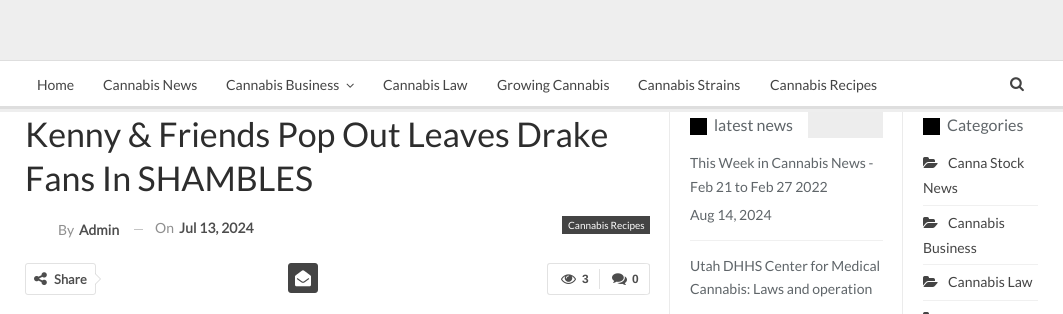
#include <cairo/cairo.h>
#include <math.h>
#include <stddef.h>

typedef struct { double x, y; const char *s; } line_t;
typedef struct { double x, y, w, h; unsigned color; } box_t;
static cairo_t *cr;

static void rgb(unsigned color)
{
	cairo_set_source_rgb(cr, (color >> 16) / 255.0, (color >> 8 & 255) / 255.0, (color & 255) / 255.0);
}

static void rrect(double x, double y, double w, double h, double r)
{
	cairo_new_sub_path(cr);
	cairo_arc(cr, x + w - r, y + h - r, r, 0, M_PI / 2);
	cairo_arc(cr, x + r, y + h - r, r, M_PI / 2, M_PI);
	cairo_arc(cr, x + r, y + r, r, M_PI, 1.5 * M_PI);
	cairo_arc(cr, x + w - r, y + r, r, 1.5 * M_PI, 2 * M_PI);
	cairo_close_path(cr);
}

static void image(const char *path, double x, double y, double w, double h)
{
	cairo_surface_t *image = cairo_image_surface_create_from_png(path);
	cairo_save(cr);
	cairo_set_source_surface(cr, image, x, y);
	cairo_rectangle(cr, x, y, w, h);
	cairo_fill(cr);
	cairo_restore(cr);
	cairo_surface_destroy(image);
}

int main(void) {
	cairo_surface_t *surface = cairo_image_surface_create(CAIRO_FORMAT_RGB24, 1063, 314);
	cr = cairo_create(surface);
	cairo_font_options_t *options = cairo_font_options_create();
	cairo_font_options_set_hint_metrics(options, CAIRO_HINT_METRICS_OFF);
	cairo_font_options_set_hint_style(options, CAIRO_HINT_STYLE_NONE);
	cairo_set_font_options(cr, options);
	cairo_set_miter_limit(cr, 4);
	rgb(0xeeeeee);
	cairo_paint(cr);
	{
		static const box_t items[] = {
			{0, 61, 1063, 45, 0xffffff},
			{0, 60, 1063, 1, 0xdedede},
			{0, 106, 1063, 3, 0xdedede},
		};
		for (size_t i = 0; i < sizeof items / sizeof *items; i++) {
			rgb(items[i].color);
			cairo_rectangle(cr, items[i].x, items[i].y, items[i].w, items[i].h);
			cairo_fill(cr);
		}
	}
	image("img/1.png", 346, 83, 8, 5);
	image("img/2.png", 1010, 77, 14, 15);
	{
		static const box_t items[] = {
			{0, 112, 1063, 202, 0xffffff},
			{134, 229, 9, 1, 0xc4c4c4},
			{562, 216, 88, 18, 0x444444},
		};
		for (size_t i = 0; i < sizeof items / sizeof *items; i++) {
			rgb(items[i].color);
			cairo_rectangle(cr, items[i].x, items[i].y, items[i].w, items[i].h);
			cairo_fill(cr);
		}
	}
	rrect(25.5, 263.5, 70, 31, 2.5);
	rgb(0xe2e2e2);
	cairo_set_line_width(cr, 1);
	cairo_stroke(cr);
	image("img/3.png", 34, 272, 13, 14);
	rgb(0xd7d7d7);
	cairo_new_path(cr);
	cairo_move_to(cr, 95, 285);
	cairo_line_to(cr, 95, 273);
	cairo_line_to(cr, 101, 279);
	cairo_close_path(cr);
	cairo_fill(cr);
	rgb(0xffffff);
	cairo_new_path(cr);
	cairo_move_to(cr, 95, 284);
	cairo_line_to(cr, 95, 274);
	cairo_line_to(cr, 100, 279);
	cairo_close_path(cr);
	cairo_fill(cr);
	rgb(0x444444);
	rrect(288, 263, 30, 30, 3);
	cairo_fill(cr);
	image("img/4.png", 295, 270, 16, 17);
	rgb(0xe2e2e2);
	cairo_set_fill_rule(cr, CAIRO_FILL_RULE_EVEN_ODD);
	cairo_new_path(cr);
	cairo_move_to(cr, 550, 263);
	cairo_line_to(cr, 599, 263);
	cairo_line_to(cr, 599, 295);
	cairo_line_to(cr, 550, 295);
	cairo_curve_to(cr, 548, 295, 547, 294, 547, 292);
	cairo_line_to(cr, 547, 266);
	cairo_curve_to(cr, 547, 264, 548, 263, 550, 263);
	cairo_close_path(cr);
	cairo_move_to(cr, 550, 264);
	cairo_line_to(cr, 599, 264);
	cairo_line_to(cr, 599, 294);
	cairo_line_to(cr, 550, 294);
	cairo_curve_to(cr, 549, 294, 548, 293, 548, 292);
	cairo_line_to(cr, 548, 266);
	cairo_curve_to(cr, 548, 265, 549, 264, 550, 264);
	cairo_close_path(cr);
	cairo_fill(cr);
	image("img/5.png", 561, 274, 15, 10);
	cairo_save(cr);
	cairo_set_fill_rule(cr, CAIRO_FILL_RULE_WINDING);
	cairo_rectangle(cr, 547, 263, 103, 32);
	cairo_clip(cr);
	cairo_set_fill_rule(cr, CAIRO_FILL_RULE_EVEN_ODD);
	cairo_new_path(cr);
	cairo_move_to(cr, 599, 263);
	cairo_line_to(cr, 639, 263);
	cairo_curve_to(cr, 654, 263, 650, 263, 650, 279);
	cairo_curve_to(cr, 650, 295, 654, 295, 639, 295);
	cairo_line_to(cr, 599, 295);
	cairo_close_path(cr);
	cairo_move_to(cr, 599, 264);
	cairo_line_to(cr, 647, 264);
	cairo_curve_to(cr, 648, 264, 649, 265, 649, 266);
	cairo_line_to(cr, 649, 292);
	cairo_curve_to(cr, 649, 293, 648, 294, 647, 294);
	cairo_line_to(cr, 599, 294);
	cairo_close_path(cr);
	cairo_fill(cr);
	cairo_restore(cr);
	cairo_rectangle(cr, 599, 269, 1, 20);
	cairo_fill(cr);
	image("img/6.png", 612, 273, 15, 12);
	{
		static const box_t items[] = {
			{669, 112, 1, 202, 0xebebeb},
			{690, 118, 17, 17, 0x000000},
			{808, 112, 75, 26, 0xededed},
			{690, 240, 193, 1, 0xf0f0f0},
			{902, 112, 1, 202, 0xebebeb},
			{923, 118, 17, 17, 0x000000},
			{923, 205, 115, 1, 0xf0f0f0},
		};
		for (size_t i = 0; i < sizeof items / sizeof *items; i++) {
			rgb(items[i].color);
			cairo_rectangle(cr, items[i].x, items[i].y, items[i].w, items[i].h);
			cairo_fill(cr);
		}
	}
	image("img/7.png", 923, 157, 15, 11);
	cairo_rectangle(cr, 923, 264, 115, 1);
	cairo_fill(cr);
	image("img/7.png", 923, 217, 15, 11);
	cairo_rectangle(cr, 923, 300, 115, 1);
	cairo_fill(cr);
	image("img/7.png", 923, 276, 15, 11);
	image("img/8.png", 923, 312, 6, 2);
	cairo_select_font_face(cr, "Lato", CAIRO_FONT_SLANT_NORMAL, CAIRO_FONT_WEIGHT_NORMAL);
	cairo_set_font_size(cr, 14);
	rgb(0x444444);
	{
		static const line_t items[] = {
			{37, 90, "Home"},
			{103, 90, "Cannabis News"},
			{226, 90, "Cannabis Business"},
			{383, 90, "Cannabis Law"},
			{497, 90, "Growing Cannabis"},
			{638, 90, "Cannabis Strains"},
			{770, 90, "Cannabis Recipes"},
		};
		for (size_t i = 0; i < sizeof items / sizeof *items; i++) {
			cairo_move_to(cr, items[i].x, items[i].y);
			cairo_show_text(cr, items[i].s);
		}
	}
	cairo_set_font_size(cr, 34);
	rgb(0x2d2d2d);
	cairo_move_to(cr, 25, 147);
	cairo_show_text(cr, "Kenny & Friends Pop Out Leaves Drake");
	cairo_move_to(cr, 25, 191);
	cairo_show_text(cr, "Fans In SHAMBLES");
	cairo_set_font_size(cr, 14);
	rgb(0x8f8f8f);
	cairo_move_to(cr, 58, 235);
	cairo_show_text(cr, "By");
	cairo_select_font_face(cr, "Lato", CAIRO_FONT_SLANT_NORMAL, CAIRO_FONT_WEIGHT_BOLD);
	rgb(0x4d4d4d);
	cairo_move_to(cr, 79, 235);
	cairo_show_text(cr, "Admin");
	cairo_select_font_face(cr, "Lato", CAIRO_FONT_SLANT_NORMAL, CAIRO_FONT_WEIGHT_NORMAL);
	rgb(0x8f8f8f);
	cairo_move_to(cr, 155, 233);
	cairo_show_text(cr, "On");
	cairo_select_font_face(cr, "Lato", CAIRO_FONT_SLANT_NORMAL, CAIRO_FONT_WEIGHT_BOLD);
	rgb(0x4d4d4d);
	cairo_move_to(cr, 179, 233);
	cairo_show_text(cr, "Jul 13, 2024");
	cairo_select_font_face(cr, "Lato", CAIRO_FONT_SLANT_NORMAL, CAIRO_FONT_WEIGHT_NORMAL);
	cairo_set_font_size(cr, 10);
	rgb(0xffffff);
	cairo_move_to(cr, 568, 229);
	cairo_show_text(cr, "Cannabis Recipes");
	cairo_select_font_face(cr, "Lato", CAIRO_FONT_SLANT_NORMAL, CAIRO_FONT_WEIGHT_BOLD);
	cairo_set_font_size(cr, 13);
	rgb(0x4d4d4d);
	cairo_move_to(cr, 54, 284);
	cairo_show_text(cr, "Share");
	cairo_select_font_face(cr, "Liberation Sans", CAIRO_FONT_SLANT_NORMAL, CAIRO_FONT_WEIGHT_BOLD);
	cairo_set_font_size(cr, 12);
	cairo_move_to(cr, 582, 283);
	cairo_show_text(cr, "3");
	cairo_move_to(cr, 632, 283);
	cairo_show_text(cr, "0");
	cairo_select_font_face(cr, "Lato", CAIRO_FONT_SLANT_NORMAL, CAIRO_FONT_WEIGHT_NORMAL);
	cairo_set_font_size(cr, 16);
	rgb(0x5f6569);
	cairo_move_to(cr, 714, 131);
	cairo_show_text(cr, "latest news");
	cairo_set_font_size(cr, 14);
	{
		static const line_t items[] = {
			{690, 168, "This Week in Cannabis News -"},
			{690, 192, "Feb 21 to Feb 27 2022"},
			{690, 220, "Aug 14, 2024"},
			{690, 271, "Utah DHHS Center for Medical"},
			{690, 294, "Cannabis: Laws and operation"},
		};
		for (size_t i = 0; i < sizeof items / sizeof *items; i++) {
			cairo_move_to(cr, items[i].x, items[i].y);
			cairo_show_text(cr, items[i].s);
		}
	}
	cairo_set_font_size(cr, 16);
	cairo_move_to(cr, 947, 131);
	cairo_show_text(cr, "Categories");
	cairo_set_font_size(cr, 14);
	rgb(0x444444);
	{
		static const line_t items[] = {
			{948, 168, "Canna Stock"},
			{923, 193, "News"},
			{948, 228, "Cannabis"},
			{923, 253, "Business"},
			{948, 287, "Cannabis Law"},
		};
		for (size_t i = 0; i < sizeof items / sizeof *items; i++) {
			cairo_move_to(cr, items[i].x, items[i].y);
			cairo_show_text(cr, items[i].s);
		}
	}
	cairo_surface_write_to_png(surface, "page.png");
	cairo_font_options_destroy(options);
	cairo_destroy(cr);
	cairo_surface_destroy(surface);
	return 0;
}
